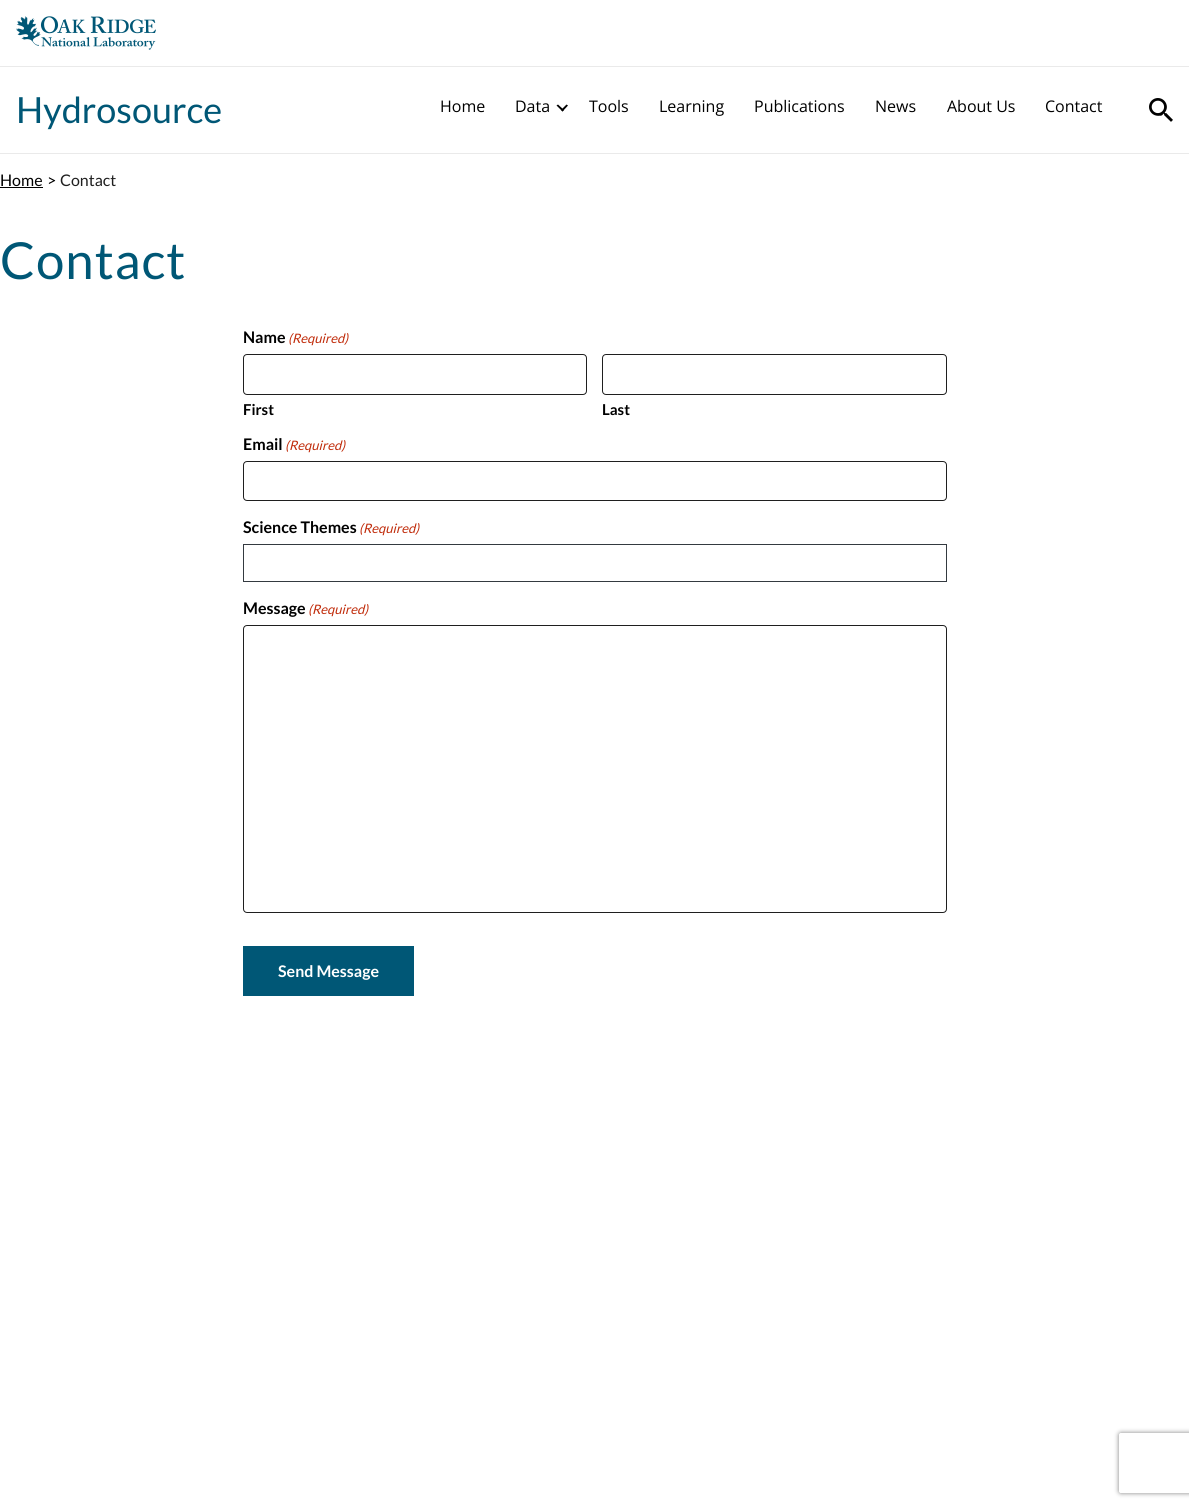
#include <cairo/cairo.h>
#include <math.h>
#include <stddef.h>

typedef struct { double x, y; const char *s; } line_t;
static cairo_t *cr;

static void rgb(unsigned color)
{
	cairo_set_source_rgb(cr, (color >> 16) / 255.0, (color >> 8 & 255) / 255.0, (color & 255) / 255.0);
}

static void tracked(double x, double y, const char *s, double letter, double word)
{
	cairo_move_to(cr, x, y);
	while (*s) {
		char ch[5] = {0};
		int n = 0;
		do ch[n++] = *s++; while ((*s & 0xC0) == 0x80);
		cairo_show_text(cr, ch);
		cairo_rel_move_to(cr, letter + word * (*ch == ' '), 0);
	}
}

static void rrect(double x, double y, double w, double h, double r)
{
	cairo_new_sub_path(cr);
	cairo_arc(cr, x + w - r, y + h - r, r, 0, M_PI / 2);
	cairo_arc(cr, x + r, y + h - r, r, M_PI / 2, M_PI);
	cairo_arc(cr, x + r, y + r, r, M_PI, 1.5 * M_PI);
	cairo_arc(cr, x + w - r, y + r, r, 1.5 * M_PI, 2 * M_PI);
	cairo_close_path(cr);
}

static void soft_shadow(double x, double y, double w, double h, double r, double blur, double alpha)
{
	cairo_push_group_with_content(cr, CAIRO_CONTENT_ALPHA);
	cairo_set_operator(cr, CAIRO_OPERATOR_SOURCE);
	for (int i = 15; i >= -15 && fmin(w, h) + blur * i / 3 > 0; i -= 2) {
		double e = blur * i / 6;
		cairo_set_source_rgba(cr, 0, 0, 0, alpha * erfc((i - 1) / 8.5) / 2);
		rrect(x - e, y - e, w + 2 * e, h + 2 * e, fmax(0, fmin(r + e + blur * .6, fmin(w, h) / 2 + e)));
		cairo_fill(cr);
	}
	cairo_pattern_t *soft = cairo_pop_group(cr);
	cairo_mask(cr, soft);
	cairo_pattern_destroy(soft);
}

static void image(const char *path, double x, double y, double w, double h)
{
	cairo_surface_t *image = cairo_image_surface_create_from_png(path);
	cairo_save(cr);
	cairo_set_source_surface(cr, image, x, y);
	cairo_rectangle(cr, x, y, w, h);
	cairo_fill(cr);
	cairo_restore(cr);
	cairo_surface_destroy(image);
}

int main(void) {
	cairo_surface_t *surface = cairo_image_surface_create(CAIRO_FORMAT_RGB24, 1189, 1507);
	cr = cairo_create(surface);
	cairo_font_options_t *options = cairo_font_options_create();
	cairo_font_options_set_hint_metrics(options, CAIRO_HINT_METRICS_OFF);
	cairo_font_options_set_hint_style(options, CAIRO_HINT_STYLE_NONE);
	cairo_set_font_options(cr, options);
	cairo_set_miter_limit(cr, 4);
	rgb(0xffffff);
	cairo_paint(cr);
	rgb(0xeaeaea);
	cairo_rectangle(cr, 0, 66, 1189, 1);
	cairo_fill(cr);
	image("img/1.png", 16, 16, 140, 34);
	cairo_rectangle(cr, 0, 153, 1189, 1);
	cairo_fill(cr);
	rgb(0x000000);
	cairo_new_path(cr);
	cairo_move_to(cr, 568, 105.5);
	cairo_line_to(cr, 562.5, 111.5);
	cairo_line_to(cr, 561, 110);
	cairo_line_to(cr, 566.5, 104.5);
	cairo_close_path(cr);
	cairo_fill(cr);
	cairo_new_path(cr);
	cairo_move_to(cr, 564, 110);
	cairo_line_to(cr, 562.5, 111.5);
	cairo_line_to(cr, 556.5, 105.5);
	cairo_line_to(cr, 558, 104.5);
	cairo_close_path(cr);
	cairo_fill(cr);
	image("img/2.png", 1149, 98, 24, 24);
	cairo_rectangle(cr, 0, 187, 43, 1);
	cairo_fill(cr);
	rrect(243.5, 354.5, 343, 40, 3.5);
	rgb(0x1f1f1f);
	cairo_set_line_width(cr, 1);
	cairo_stroke(cr);
	rrect(602.5, 354.5, 344, 40, 3.5);
	cairo_stroke(cr);
	rrect(243.5, 461.5, 703, 39, 3.5);
	cairo_stroke(cr);
	cairo_rectangle(cr, 243.5, 544.5, 703, 37);
	rgb(0x343a40);
	cairo_stroke(cr);
	rrect(243.5, 625.5, 703, 287, 3.5);
	rgb(0x1f1f1f);
	cairo_stroke(cr);
	rgb(0x005776);
	cairo_rectangle(cr, 243, 946, 171, 50);
	cairo_fill(cr);
	cairo_save(cr);
	cairo_set_fill_rule(cr, CAIRO_FILL_RULE_EVEN_ODD);
	cairo_new_path(cr);
	cairo_move_to(cr, 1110, 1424);
	cairo_line_to(cr, 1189, 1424);
	cairo_line_to(cr, 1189, 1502);
	cairo_line_to(cr, 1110, 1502);
	cairo_close_path(cr);
	cairo_move_to(cr, 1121, 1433);
	cairo_line_to(cr, 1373, 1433);
	cairo_curve_to(cr, 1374, 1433, 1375, 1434, 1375, 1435);
	cairo_line_to(cr, 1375, 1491);
	cairo_curve_to(cr, 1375, 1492, 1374, 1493, 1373, 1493);
	cairo_line_to(cr, 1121, 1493);
	cairo_curve_to(cr, 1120, 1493, 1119, 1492, 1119, 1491);
	cairo_line_to(cr, 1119, 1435);
	cairo_curve_to(cr, 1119, 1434, 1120, 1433, 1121, 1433);
	cairo_close_path(cr);
	cairo_clip(cr);
	rgb(0x808080);
	soft_shadow(1119, 1433, 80, 60, 2, 2.5, 1);
	cairo_restore(cr);
	cairo_select_font_face(cr, "Lato", CAIRO_FONT_SLANT_NORMAL, CAIRO_FONT_WEIGHT_NORMAL);
	cairo_set_font_size(cr, 36);
	cairo_move_to(cr, 16, 123);
	cairo_show_text(cr, "Hydrosource");
	cairo_select_font_face(cr, "Open Sans", CAIRO_FONT_SLANT_NORMAL, CAIRO_FONT_WEIGHT_NORMAL);
	cairo_set_font_size(cr, 16);
	rgb(0x000000);
	{
		static const line_t items[] = {
			{440, 112, "Home"},
			{515, 112, "Data"},
			{589, 112, "Tools"},
			{659, 112, "Learning"},
			{754, 112, "Publications"},
			{875, 112, "News"},
			{947, 112, "About Us"},
			{1045, 112, "Contact"},
		};
		for (size_t i = 0; i < sizeof items / sizeof *items; i++) {
			cairo_move_to(cr, items[i].x, items[i].y);
			cairo_show_text(cr, items[i].s);
		}
	}
	cairo_select_font_face(cr, "Lato", CAIRO_FONT_SLANT_NORMAL, CAIRO_FONT_WEIGHT_NORMAL);
	cairo_move_to(cr, 0, 186);
	cairo_show_text(cr, "Home");
	cairo_move_to(cr, 47, 186);
	cairo_show_text(cr, ">");
	rgb(0x1f1f1f);
	cairo_move_to(cr, 60, 186);
	cairo_show_text(cr, "Contact");
	cairo_set_font_size(cr, 51);
	rgb(0x005776);
	tracked(0, 279, "Contact", 1, 0);
	cairo_select_font_face(cr, "Lato", CAIRO_FONT_SLANT_NORMAL, CAIRO_FONT_WEIGHT_BOLD);
	cairo_set_font_size(cr, 16);
	rgb(0x000000);
	cairo_move_to(cr, 243, 343);
	cairo_show_text(cr, "Name");
	cairo_select_font_face(cr, "Lato", CAIRO_FONT_SLANT_ITALIC, CAIRO_FONT_WEIGHT_NORMAL);
	cairo_set_font_size(cr, 13);
	rgb(0xc02b0a);
	cairo_move_to(cr, 288, 343);
	cairo_show_text(cr, "(Required)");
	cairo_select_font_face(cr, "Lato", CAIRO_FONT_SLANT_NORMAL, CAIRO_FONT_WEIGHT_BOLD);
	cairo_set_font_size(cr, 15);
	rgb(0x000000);
	cairo_move_to(cr, 243, 415);
	cairo_show_text(cr, "First");
	cairo_move_to(cr, 602, 415);
	cairo_show_text(cr, "Last");
	cairo_set_font_size(cr, 16);
	cairo_move_to(cr, 243, 450);
	cairo_show_text(cr, "Email");
	cairo_select_font_face(cr, "Lato", CAIRO_FONT_SLANT_ITALIC, CAIRO_FONT_WEIGHT_NORMAL);
	cairo_set_font_size(cr, 13);
	rgb(0xc02b0a);
	cairo_move_to(cr, 285, 450);
	cairo_show_text(cr, "(Required)");
	cairo_select_font_face(cr, "Lato", CAIRO_FONT_SLANT_NORMAL, CAIRO_FONT_WEIGHT_BOLD);
	cairo_set_font_size(cr, 16);
	rgb(0x000000);
	cairo_move_to(cr, 243, 533);
	cairo_show_text(cr, "Science Themes");
	cairo_select_font_face(cr, "Lato", CAIRO_FONT_SLANT_ITALIC, CAIRO_FONT_WEIGHT_NORMAL);
	cairo_set_font_size(cr, 13);
	rgb(0xc02b0a);
	cairo_move_to(cr, 359, 533);
	cairo_show_text(cr, "(Required)");
	cairo_select_font_face(cr, "Lato", CAIRO_FONT_SLANT_NORMAL, CAIRO_FONT_WEIGHT_BOLD);
	cairo_set_font_size(cr, 16);
	rgb(0x000000);
	cairo_move_to(cr, 243, 614);
	cairo_show_text(cr, "Message");
	cairo_select_font_face(cr, "Lato", CAIRO_FONT_SLANT_ITALIC, CAIRO_FONT_WEIGHT_NORMAL);
	cairo_set_font_size(cr, 13);
	rgb(0xc02b0a);
	cairo_move_to(cr, 308, 614);
	cairo_show_text(cr, "(Required)");
	cairo_select_font_face(cr, "Lato", CAIRO_FONT_SLANT_NORMAL, CAIRO_FONT_WEIGHT_BOLD);
	cairo_set_font_size(cr, 16);
	rgb(0xffffff);
	cairo_move_to(cr, 278, 977);
	cairo_show_text(cr, "Send Message");
	cairo_surface_write_to_png(surface, "page.png");
	cairo_font_options_destroy(options);
	cairo_destroy(cr);
	cairo_surface_destroy(surface);
	return 0;
}
